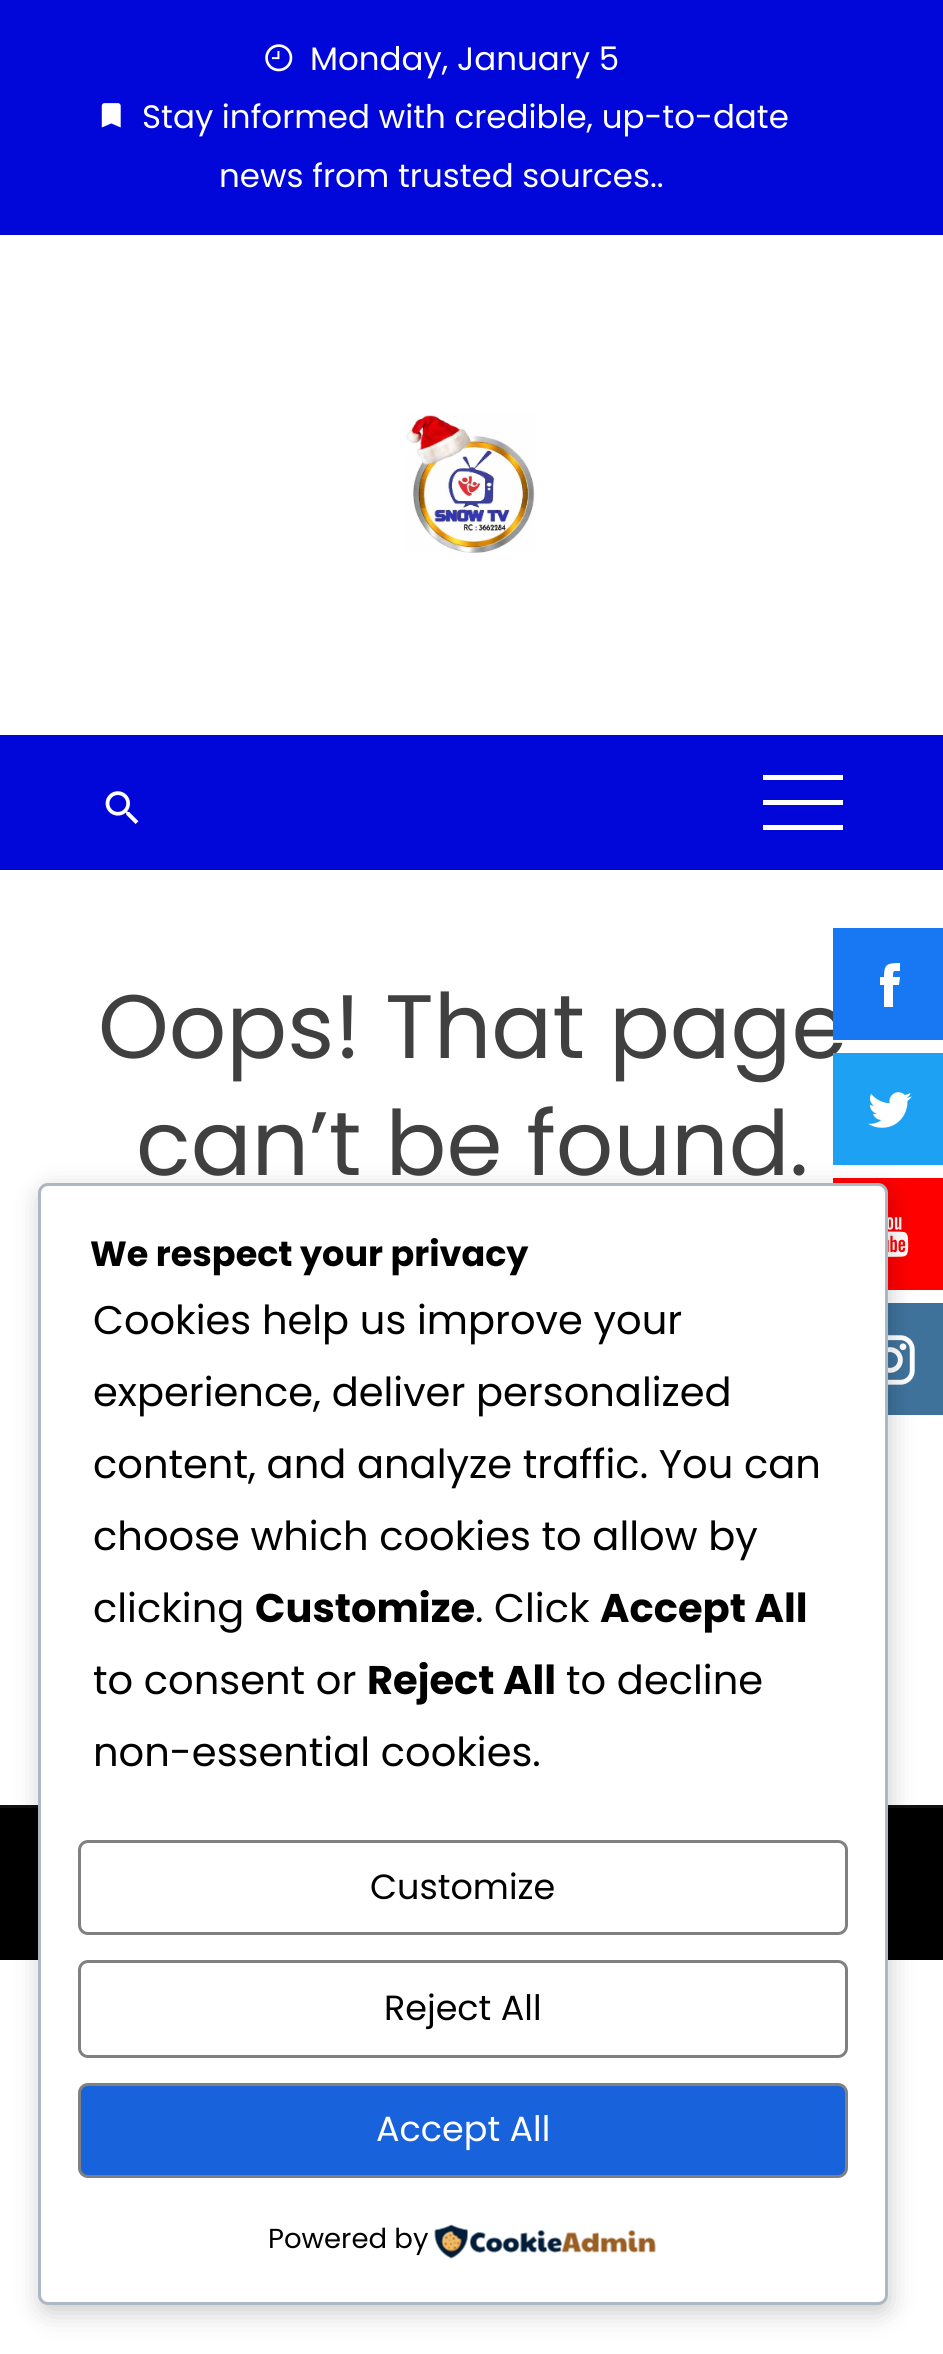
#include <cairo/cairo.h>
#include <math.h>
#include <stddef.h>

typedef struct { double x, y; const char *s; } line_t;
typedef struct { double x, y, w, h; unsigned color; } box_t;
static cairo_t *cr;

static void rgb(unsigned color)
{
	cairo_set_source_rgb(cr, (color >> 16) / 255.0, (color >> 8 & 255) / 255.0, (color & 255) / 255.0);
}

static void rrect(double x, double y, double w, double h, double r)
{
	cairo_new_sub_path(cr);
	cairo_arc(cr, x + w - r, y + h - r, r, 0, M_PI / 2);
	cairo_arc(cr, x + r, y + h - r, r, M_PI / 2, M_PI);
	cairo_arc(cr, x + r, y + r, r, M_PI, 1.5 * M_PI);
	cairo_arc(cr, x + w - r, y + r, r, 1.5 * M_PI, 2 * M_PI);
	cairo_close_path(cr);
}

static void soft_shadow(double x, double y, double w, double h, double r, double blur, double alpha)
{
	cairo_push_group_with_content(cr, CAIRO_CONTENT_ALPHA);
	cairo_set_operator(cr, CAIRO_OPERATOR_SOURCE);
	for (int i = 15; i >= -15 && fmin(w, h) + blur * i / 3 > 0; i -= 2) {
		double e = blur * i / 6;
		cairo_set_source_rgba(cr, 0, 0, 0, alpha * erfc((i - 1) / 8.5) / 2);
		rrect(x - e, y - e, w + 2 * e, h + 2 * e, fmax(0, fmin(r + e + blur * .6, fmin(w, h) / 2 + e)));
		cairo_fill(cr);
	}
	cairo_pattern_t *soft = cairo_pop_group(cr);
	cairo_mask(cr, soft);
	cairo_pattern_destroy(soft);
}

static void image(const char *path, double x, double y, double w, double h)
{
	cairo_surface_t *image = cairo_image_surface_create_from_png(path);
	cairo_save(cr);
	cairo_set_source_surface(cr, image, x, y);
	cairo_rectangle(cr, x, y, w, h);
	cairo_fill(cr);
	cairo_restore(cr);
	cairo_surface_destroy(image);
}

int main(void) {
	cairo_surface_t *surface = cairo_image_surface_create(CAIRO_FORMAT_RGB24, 943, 2354);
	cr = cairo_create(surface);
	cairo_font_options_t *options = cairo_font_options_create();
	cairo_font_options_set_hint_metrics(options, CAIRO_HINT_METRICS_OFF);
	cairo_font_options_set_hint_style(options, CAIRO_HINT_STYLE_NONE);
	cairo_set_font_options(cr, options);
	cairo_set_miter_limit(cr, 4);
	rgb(0xffffff);
	cairo_paint(cr);
	rgb(0x0007d8);
	cairo_rectangle(cr, 0, 0, 943, 235);
	cairo_fill(cr);
	image("img/1.png", 265, 44, 28, 28);
	image("img/2.png", 101, 103, 20, 25);
	image("img/3.png", 406, 414, 129, 139);
	cairo_rectangle(cr, 0, 735, 943, 135);
	cairo_fill(cr);
	image("img/4.png", 105, 791, 34, 33);
	{
		static const box_t items[] = {
			{763, 775, 80, 5, 0xffffff},
			{763, 825, 80, 5, 0xffffff},
			{763, 800, 80, 5, 0xffffff},
			{0, 1808, 943, 152, 0x000000},
			{0, 1805, 943, 3, 0x111111},
			{833, 1178, 110, 112, 0xff0000},
		};
		for (size_t i = 0; i < sizeof items / sizeof *items; i++) {
			rgb(items[i].color);
			cairo_rectangle(cr, items[i].x, items[i].y, items[i].w, items[i].h);
			cairo_fill(cr);
		}
	}
	image("img/6.png", 888, 1217, 21, 40);
	rgb(0x3f729b);
	cairo_rectangle(cr, 888, 1303, 55, 112);
	cairo_fill(cr);
	image("img/7.png", 888, 1335, 27, 50);
	cairo_select_font_face(cr, "Poppins", CAIRO_FONT_SLANT_NORMAL, CAIRO_FONT_WEIGHT_NORMAL);
	cairo_set_font_size(cr, 32.5);
	rgb(0xffffff);
	{
		static const line_t items[] = {
			{310, 70, "Monday, January 5"},
			{142, 128, "Stay informed with credible, up-to-date"},
			{219, 187, "news from trusted sources.."},
		};
		for (size_t i = 0; i < sizeof items / sizeof *items; i++) {
			cairo_move_to(cr, items[i].x, items[i].y);
			cairo_show_text(cr, items[i].s);
		}
	}
	cairo_set_font_size(cr, 90);
	rgb(0x404040);
	cairo_move_to(cr, 98, 1058);
	cairo_show_text(cr, "Oops! That page");
	cairo_move_to(cr, 136, 1175);
	cairo_show_text(cr, "can’t be found.");
	rgb(0x1877f2);
	cairo_rectangle(cr, 833, 928, 110, 112);
	cairo_fill(cr);
	rgb(0xffffff);
	cairo_new_path(cr);
	cairo_move_to(cr, 900, 977);
	cairo_line_to(cr, 893, 977);
	cairo_curve_to(cr, 893, 970, 893, 971, 900, 971);
	cairo_line_to(cr, 900, 963);
	cairo_curve_to(cr, 887, 963, 884, 964, 884, 977);
	cairo_line_to(cr, 880, 977);
	cairo_line_to(cr, 880, 985);
	cairo_line_to(cr, 884, 985);
	cairo_line_to(cr, 884, 1007);
	cairo_line_to(cr, 893, 1007);
	cairo_line_to(cr, 893, 985);
	cairo_line_to(cr, 899, 985);
	cairo_close_path(cr);
	cairo_fill(cr);
	rgb(0x1da1f2);
	cairo_rectangle(cr, 833, 1053, 110, 112);
	cairo_fill(cr);
	image("img/5.png", 868, 1092, 44, 36);
	rgb(0x000000);
	soft_shadow(40, 1190, 850, 1123, 10, 12.5, 0.2);
	rgb(0xffffff);
	rrect(39.5, 1184.5, 847, 1119, 8.5);
	cairo_fill_preserve(cr);
	rgb(0xabb8c3);
	cairo_set_line_width(cr, 3);
	cairo_stroke(cr);
	cairo_select_font_face(cr, "Poppins", CAIRO_FONT_SLANT_NORMAL, CAIRO_FONT_WEIGHT_BOLD);
	cairo_set_font_size(cr, 35);
	rgb(0x000000);
	cairo_move_to(cr, 90, 1266);
	cairo_show_text(cr, "We respect your privacy");
	cairo_select_font_face(cr, "Poppins", CAIRO_FONT_SLANT_NORMAL, CAIRO_FONT_WEIGHT_NORMAL);
	cairo_set_font_size(cr, 40);
	{
		static const line_t items[] = {
			{93, 1334, "Cookies help us improve your"},
			{93, 1406, "experience, deliver personalized"},
			{93, 1478, "content, and analyze traffic. You can"},
			{93, 1550, "choose which cookies to allow by"},
			{93, 1622, "clicking"},
		};
		for (size_t i = 0; i < sizeof items / sizeof *items; i++) {
			cairo_move_to(cr, items[i].x, items[i].y);
			cairo_show_text(cr, items[i].s);
		}
	}
	cairo_select_font_face(cr, "Poppins", CAIRO_FONT_SLANT_NORMAL, CAIRO_FONT_WEIGHT_BOLD);
	cairo_move_to(cr, 255, 1622);
	cairo_show_text(cr, "Customize");
	cairo_select_font_face(cr, "Poppins", CAIRO_FONT_SLANT_NORMAL, CAIRO_FONT_WEIGHT_NORMAL);
	cairo_move_to(cr, 475, 1622);
	cairo_show_text(cr, ". Click");
	cairo_select_font_face(cr, "Poppins", CAIRO_FONT_SLANT_NORMAL, CAIRO_FONT_WEIGHT_BOLD);
	cairo_move_to(cr, 600, 1622);
	cairo_show_text(cr, "Accept All");
	cairo_select_font_face(cr, "Poppins", CAIRO_FONT_SLANT_NORMAL, CAIRO_FONT_WEIGHT_NORMAL);
	cairo_move_to(cr, 93, 1694);
	cairo_show_text(cr, "to consent or");
	cairo_select_font_face(cr, "Poppins", CAIRO_FONT_SLANT_NORMAL, CAIRO_FONT_WEIGHT_BOLD);
	cairo_move_to(cr, 367, 1694);
	cairo_show_text(cr, "Reject All");
	cairo_select_font_face(cr, "Poppins", CAIRO_FONT_SLANT_NORMAL, CAIRO_FONT_WEIGHT_NORMAL);
	cairo_move_to(cr, 566, 1694);
	cairo_show_text(cr, "to decline");
	cairo_move_to(cr, 93, 1766);
	cairo_show_text(cr, "non-essential cookies.");
	rrect(79.5, 1841.5, 767, 92, 8.5);
	rgb(0x808080);
	cairo_stroke(cr);
	cairo_set_font_size(cr, 35);
	rgb(0x000000);
	cairo_move_to(cr, 370, 1899);
	cairo_show_text(cr, "Customize");
	rrect(79.5, 1961.5, 767, 95, 8.5);
	rgb(0x808080);
	cairo_stroke(cr);
	rgb(0x000000);
	cairo_move_to(cr, 384, 2020);
	cairo_show_text(cr, "Reject All");
	rgb(0x1863dc);
	rrect(79.5, 2084.5, 767, 92, 8.5);
	cairo_fill_preserve(cr);
	rgb(0x808080);
	cairo_stroke(cr);
	rgb(0xffffff);
	cairo_move_to(cr, 376, 2141);
	cairo_show_text(cr, "Accept All");
	cairo_set_font_size(cr, 27.5);
	rgb(0x000000);
	cairo_move_to(cr, 268, 2248);
	cairo_show_text(cr, "Powered by");
	image("img/8.png", 434, 2224, 222, 35);
	cairo_surface_write_to_png(surface, "page.png");
	cairo_font_options_destroy(options);
	cairo_destroy(cr);
	cairo_surface_destroy(surface);
	return 0;
}
